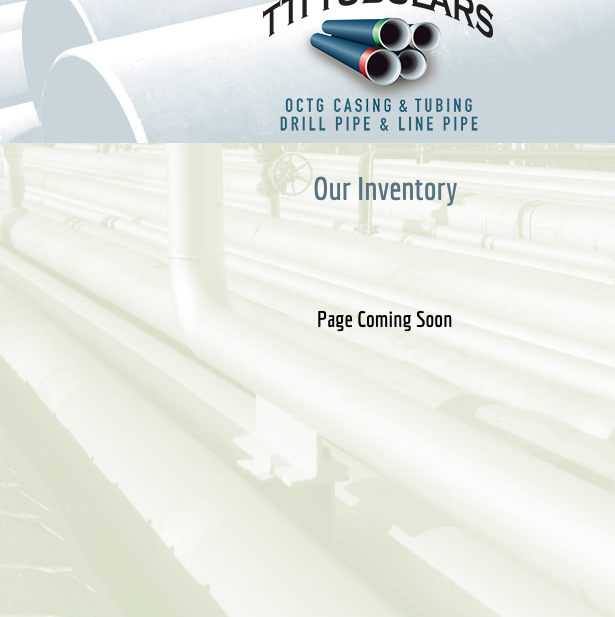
#include <cairo/cairo.h>
#include <math.h>
#include <stddef.h>

static cairo_t *cr;

static void rgb(unsigned color)
{
	cairo_set_source_rgb(cr, (color >> 16) / 255.0, (color >> 8 & 255) / 255.0, (color & 255) / 255.0);
}

static void image(const char *path, double x, double y, double w, double h)
{
	cairo_surface_t *image = cairo_image_surface_create_from_png(path);
	cairo_save(cr);
	cairo_set_source_surface(cr, image, x, y);
	cairo_rectangle(cr, x, y, w, h);
	cairo_fill(cr);
	cairo_restore(cr);
	cairo_surface_destroy(image);
}

int main(void) {
	cairo_surface_t *surface = cairo_image_surface_create(CAIRO_FORMAT_RGB24, 615, 617);
	cr = cairo_create(surface);
	cairo_font_options_t *options = cairo_font_options_create();
	cairo_font_options_set_hint_metrics(options, CAIRO_HINT_METRICS_OFF);
	cairo_font_options_set_hint_style(options, CAIRO_HINT_STYLE_NONE);
	cairo_set_font_options(cr, options);
	cairo_set_miter_limit(cr, 4);
	rgb(0xffffff);
	cairo_paint(cr);
	image("img/1.png", 0, 0, 615, 617);
	image("img/2.png", 263, 0, 230, 131);
	cairo_select_font_face(cr, "Economica", CAIRO_FONT_SLANT_NORMAL, CAIRO_FONT_WEIGHT_BOLD);
	cairo_set_font_size(cr, 32);
	rgb(0x59727f);
	cairo_move_to(cr, 313, 200);
	cairo_show_text(cr, "Our Inventory");
	cairo_set_font_size(cr, 22);
	rgb(0x000000);
	cairo_move_to(cr, 317, 327);
	cairo_show_text(cr, "Page Coming Soon");
	cairo_surface_write_to_png(surface, "page.png");
	cairo_font_options_destroy(options);
	cairo_destroy(cr);
	cairo_surface_destroy(surface);
	return 0;
}
